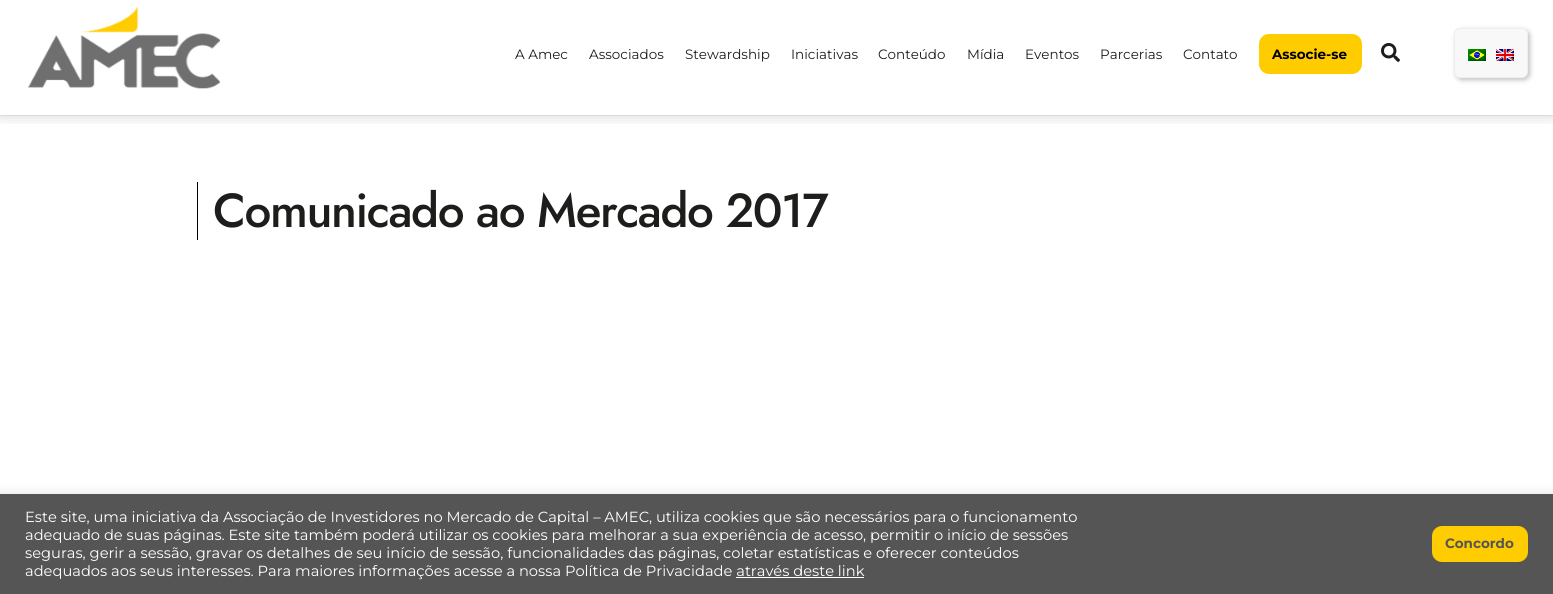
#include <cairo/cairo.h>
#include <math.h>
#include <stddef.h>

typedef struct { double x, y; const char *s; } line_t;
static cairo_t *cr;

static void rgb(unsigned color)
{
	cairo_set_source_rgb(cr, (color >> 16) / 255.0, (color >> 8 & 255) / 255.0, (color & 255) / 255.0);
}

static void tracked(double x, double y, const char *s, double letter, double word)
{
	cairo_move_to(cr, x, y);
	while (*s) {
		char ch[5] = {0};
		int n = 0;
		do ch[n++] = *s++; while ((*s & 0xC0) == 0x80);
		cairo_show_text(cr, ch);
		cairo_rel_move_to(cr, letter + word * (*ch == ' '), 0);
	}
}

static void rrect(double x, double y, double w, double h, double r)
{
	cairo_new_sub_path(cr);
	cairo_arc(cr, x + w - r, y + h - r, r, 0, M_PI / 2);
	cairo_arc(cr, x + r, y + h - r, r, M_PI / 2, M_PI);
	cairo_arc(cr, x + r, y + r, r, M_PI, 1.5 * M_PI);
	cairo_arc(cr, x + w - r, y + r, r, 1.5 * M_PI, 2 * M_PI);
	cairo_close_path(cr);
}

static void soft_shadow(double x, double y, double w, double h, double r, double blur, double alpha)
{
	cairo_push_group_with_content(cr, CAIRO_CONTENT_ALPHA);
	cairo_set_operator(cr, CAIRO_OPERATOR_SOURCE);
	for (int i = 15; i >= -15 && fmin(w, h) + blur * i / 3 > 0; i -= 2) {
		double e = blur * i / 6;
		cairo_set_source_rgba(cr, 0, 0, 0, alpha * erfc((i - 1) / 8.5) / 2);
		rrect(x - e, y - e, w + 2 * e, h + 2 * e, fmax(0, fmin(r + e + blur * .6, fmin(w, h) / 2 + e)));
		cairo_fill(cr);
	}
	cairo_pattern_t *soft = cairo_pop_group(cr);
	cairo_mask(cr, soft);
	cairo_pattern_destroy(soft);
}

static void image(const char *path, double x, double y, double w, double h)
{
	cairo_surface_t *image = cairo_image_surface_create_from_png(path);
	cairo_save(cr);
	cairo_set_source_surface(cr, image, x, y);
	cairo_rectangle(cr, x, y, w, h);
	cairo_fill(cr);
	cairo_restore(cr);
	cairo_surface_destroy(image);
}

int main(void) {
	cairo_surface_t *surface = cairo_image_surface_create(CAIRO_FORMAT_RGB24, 1553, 594);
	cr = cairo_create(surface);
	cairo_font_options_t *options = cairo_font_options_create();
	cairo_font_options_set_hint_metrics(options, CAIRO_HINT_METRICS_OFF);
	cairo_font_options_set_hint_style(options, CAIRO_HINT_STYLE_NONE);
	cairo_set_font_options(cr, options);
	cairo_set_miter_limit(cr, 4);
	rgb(0xffffff);
	cairo_paint(cr);
	rgb(0xf2f2f2);
	cairo_rectangle(cr, 0, 115, 1553, 1);
	cairo_fill(cr);
	cairo_save(cr);
	cairo_rectangle(cr, 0, 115, 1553, 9);
	cairo_clip(cr);
	rgb(0x000000);
	soft_shadow(0, 0, 1553, 115, 0, 7, 0.2);
	cairo_restore(cr);
	image("img/1.png", 28, 6, 192, 83);
	rgb(0xffcc00);
	rrect(1259, 34, 103, 40, 10);
	cairo_fill(cr);
	image("img/2.png", 1381, 43, 19, 19);
	rgb(0x000000);
	cairo_rectangle(cr, 197, 182, 1, 58);
	cairo_fill(cr);
	rgb(0x000000);
	soft_shadow(1456, 30, 74, 50, 6, 2.5, 0.25);
	rgb(0xf8f8f8);
	rrect(1454.5, 28.5, 73, 49, 5.5);
	cairo_fill_preserve(cr);
	rgb(0xeeeeee);
	cairo_set_line_width(cr, 1);
	cairo_stroke(cr);
	image("img/3.png", 1468, 49, 18, 12);
	image("img/4.png", 1496, 49, 18, 12);
	rgb(0xacabab);
	soft_shadow(0, 493, 1553, 100, 0, 5, 0.3);
	rgb(0x555555);
	cairo_rectangle(cr, 0, 494, 1553, 100);
	cairo_fill(cr);
	rgb(0xffffff);
	cairo_rectangle(cr, 736, 577, 128, 1);
	cairo_fill(cr);
	rgb(0xffcc00);
	rrect(1432, 526, 96, 36, 10);
	cairo_fill(cr);
	cairo_select_font_face(cr, "Montserrat Thin", CAIRO_FONT_SLANT_NORMAL, CAIRO_FONT_WEIGHT_NORMAL);
	cairo_set_font_size(cr, 13.5);
	rgb(0x1d1d1b);
	{
		static const line_t items[] = {
			{515, 59, "A Amec"},
			{589, 59, "Associados"},
			{685, 59, "Stewardship"},
			{791, 59, "Iniciativas"},
			{878, 59, "Conteúdo"},
			{967, 59, "Mídia"},
			{1025, 59, "Eventos"},
			{1100, 59, "Parcerias"},
			{1183, 59, "Contato"},
		};
		for (size_t i = 0; i < sizeof items / sizeof *items; i++) {
			cairo_move_to(cr, items[i].x, items[i].y);
			cairo_show_text(cr, items[i].s);
		}
	}
	cairo_select_font_face(cr, "Montserrat", CAIRO_FONT_SLANT_NORMAL, CAIRO_FONT_WEIGHT_BOLD);
	rgb(0x000000);
	cairo_move_to(cr, 1272, 59);
	cairo_show_text(cr, "Associe-se");
	cairo_select_font_face(cr, "Jost Medium", CAIRO_FONT_SLANT_NORMAL, CAIRO_FONT_WEIGHT_NORMAL);
	cairo_set_font_size(cr, 47.6);
	rgb(0x1d1d1b);
	tracked(213, 227, "Comunicado ao Mercado 2017", -1.4, 0);
	cairo_select_font_face(cr, "Montserrat Thin", CAIRO_FONT_SLANT_NORMAL, CAIRO_FONT_WEIGHT_NORMAL);
	cairo_set_font_size(cr, 14.67);
	rgb(0xffffff);
	{
		static const line_t items[] = {
			{25, 522, "Este site, uma iniciativa da Associação de Investidores no Mercado de Capital – AMEC, utiliza cookies que são necessários para o funcionamento"},
			{25, 540, "adequado de suas páginas. Este site também poderá utilizar os cookies para melhorar a sua experiência de acesso, permitir o início de sessões"},
			{25, 558, "seguras, gerir a sessão, gravar os detalhes de seu início de sessão, funcionalidades das páginas, coletar estatísticas e oferecer conteúdos"},
			{25, 576, "adequados aos seus interesses. Para maiores informações acesse a nossa Política de Privacidade através deste link"},
		};
		for (size_t i = 0; i < sizeof items / sizeof *items; i++) {
			cairo_move_to(cr, items[i].x, items[i].y);
			cairo_show_text(cr, items[i].s);
		}
	}
	cairo_select_font_face(cr, "Montserrat", CAIRO_FONT_SLANT_NORMAL, CAIRO_FONT_WEIGHT_BOLD);
	cairo_set_font_size(cr, 13.5);
	rgb(0x555555);
	cairo_move_to(cr, 1445, 548);
	cairo_show_text(cr, "Concordo");
	cairo_surface_write_to_png(surface, "page.png");
	cairo_font_options_destroy(options);
	cairo_destroy(cr);
	cairo_surface_destroy(surface);
	return 0;
}
